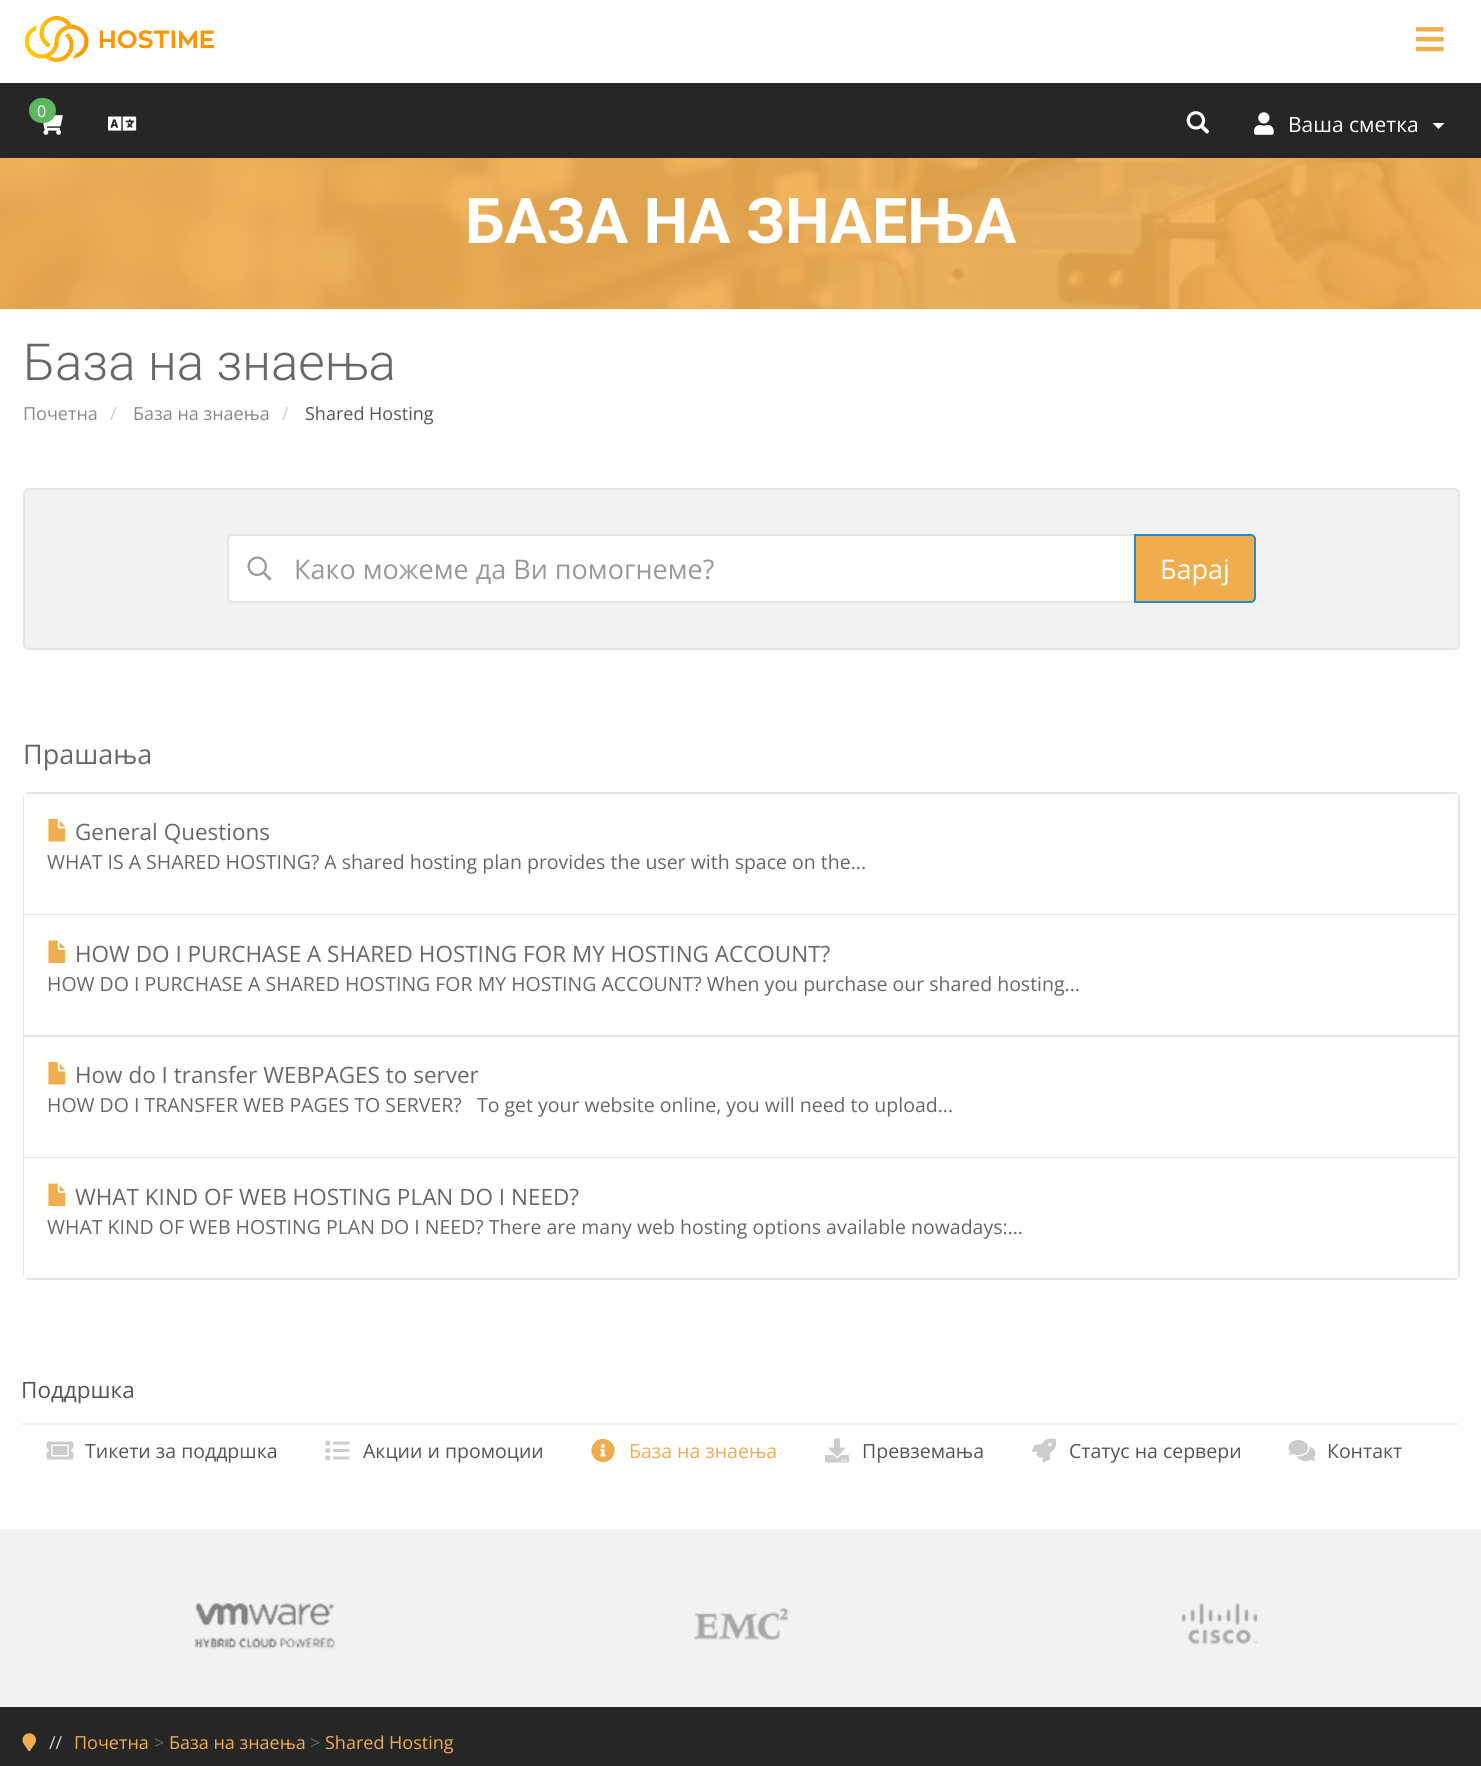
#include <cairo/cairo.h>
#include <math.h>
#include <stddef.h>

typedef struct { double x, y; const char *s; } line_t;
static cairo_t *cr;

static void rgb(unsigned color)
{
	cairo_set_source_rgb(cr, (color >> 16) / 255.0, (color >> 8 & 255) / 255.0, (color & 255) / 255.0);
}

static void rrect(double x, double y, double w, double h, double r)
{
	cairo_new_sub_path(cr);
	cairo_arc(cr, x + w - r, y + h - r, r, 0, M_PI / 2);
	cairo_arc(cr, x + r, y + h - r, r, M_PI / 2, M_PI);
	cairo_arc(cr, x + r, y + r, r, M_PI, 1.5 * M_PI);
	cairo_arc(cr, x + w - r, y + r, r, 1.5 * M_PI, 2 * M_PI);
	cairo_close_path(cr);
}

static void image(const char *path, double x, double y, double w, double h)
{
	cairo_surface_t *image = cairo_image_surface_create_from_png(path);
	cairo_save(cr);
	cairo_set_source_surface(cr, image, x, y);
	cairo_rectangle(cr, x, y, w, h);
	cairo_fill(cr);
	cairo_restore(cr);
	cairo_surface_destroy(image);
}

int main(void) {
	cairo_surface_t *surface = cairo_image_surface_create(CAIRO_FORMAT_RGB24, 1481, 1766);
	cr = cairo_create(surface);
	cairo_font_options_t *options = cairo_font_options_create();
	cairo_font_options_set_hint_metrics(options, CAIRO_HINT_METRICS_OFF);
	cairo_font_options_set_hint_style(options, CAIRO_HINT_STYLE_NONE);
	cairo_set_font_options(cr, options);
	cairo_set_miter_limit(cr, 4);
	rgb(0xffffff);
	cairo_paint(cr);
	image("img/1.png", 24, 15, 191, 48);
	image("img/2.png", 1416, 27, 28, 25);
	rgb(0x262626);
	cairo_rectangle(cr, 0, 83, 1481, 75);
	cairo_fill(cr);
	image("img/3.png", 43, 115, 20, 20);
	rgb(0x5cb85c);
	rrect(29, 98, 27, 25, 12.5);
	cairo_fill(cr);
	image("img/4.png", 108, 116, 29, 15);
	image("img/5.png", 1186, 111, 24, 23);
	image("img/6.png", 1254, 112, 20, 23);
	rgb(0xffffff);
	cairo_new_path(cr);
	cairo_move_to(cr, 1432.5, 123);
	cairo_line_to(cr, 1444.5, 123);
	cairo_line_to(cr, 1438.5, 129);
	cairo_close_path(cr);
	cairo_fill(cr);
	image("img/7.png", 0, 158, 1481, 151);
	rgb(0xf2f2f2);
	rrect(24, 489, 1435, 160, 5);
	cairo_fill_preserve(cr);
	rgb(0xe5e5e5);
	cairo_stroke(cr);
	rgb(0xffffff);
	cairo_new_path(cr);
	cairo_move_to(cr, 232, 535);
	cairo_line_to(cr, 1135, 535);
	cairo_line_to(cr, 1135, 602);
	cairo_line_to(cr, 232, 602);
	cairo_curve_to(cr, 230, 602, 228, 600, 228, 598);
	cairo_line_to(cr, 228, 539);
	cairo_curve_to(cr, 228, 537, 230, 535, 232, 535);
	cairo_close_path(cr);
	cairo_fill_preserve(cr);
	rgb(0xe5e5e5);
	cairo_stroke(cr);
	image("img/8.png", 247, 556, 25, 25);
	rgb(0xf0ad4e);
	cairo_new_path(cr);
	cairo_move_to(cr, 1135, 535);
	cairo_line_to(cr, 1251, 535);
	cairo_curve_to(cr, 1253, 535, 1255, 537, 1255, 539);
	cairo_line_to(cr, 1255, 598);
	cairo_curve_to(cr, 1255, 600, 1253, 602, 1251, 602);
	cairo_line_to(cr, 1135, 602);
	cairo_close_path(cr);
	cairo_fill_preserve(cr);
	rgb(0x258cd1);
	cairo_stroke(cr);
	rrect(24, 793, 1435, 486, 5);
	rgb(0xe5e5e5);
	cairo_stroke(cr);
	rgb(0xffffff);
	cairo_rectangle(cr, 24, 794, 1434, 120);
	cairo_fill(cr);
	rgb(0xe5e5e5);
	cairo_rectangle(cr, 24, 914, 1434, 1);
	cairo_fill(cr);
	image("img/9.png", 48, 819, 18, 23);
	rgb(0xffffff);
	cairo_rectangle(cr, 24, 915, 1, 120);
	cairo_fill(cr);
	rgb(0xe5e5e5);
	cairo_rectangle(cr, 24, 1035, 1434, 2);
	cairo_fill(cr);
	image("img/10.png", 48, 940, 18, 23);
	rgb(0xffffff);
	cairo_rectangle(cr, 24, 1037, 1, 120);
	cairo_fill(cr);
	rgb(0xe5e5e5);
	cairo_rectangle(cr, 24, 1157, 1434, 1);
	cairo_fill(cr);
	image("img/9.png", 48, 1062, 18, 23);
	rgb(0xffffff);
	cairo_rectangle(cr, 24, 1158, 1434, 120);
	cairo_fill(cr);
	image("img/10.png", 48, 1183, 18, 23);
	cairo_new_path(cr);
	cairo_move_to(cr, 22.5, 1424);
	cairo_line_to(cr, 1459.5, 1424);
	rgb(0xe5e5e5);
	cairo_set_line_width(cr, 1.5);
	cairo_set_dash(cr, (double[]){1.5, 1.5}, 2, 0);
	cairo_stroke(cr);
	image("img/11.png", 46, 1441, 28, 19);
	image("img/12.png", 325, 1440, 25, 21);
	image("img/13.png", 591, 1438, 24, 25);
	image("img/14.png", 825, 1438, 24, 25);
	image("img/15.png", 1032, 1438, 24, 25);
	image("img/16.png", 1288, 1440, 28, 21);
	rgb(0xf2f2f2);
	cairo_rectangle(cr, 0, 1529, 1481, 178);
	cairo_fill(cr);
	image("img/17.png", 194, 1603, 141, 46);
	image("img/18.png", 694, 1607, 94, 33);
	image("img/19.png", 1181, 1603, 77, 42);
	rgb(0x262626);
	cairo_rectangle(cr, 0, 1707, 1481, 59);
	cairo_fill(cr);
	image("img/20.png", 22, 1733, 14, 19);
	cairo_select_font_face(cr, "Open Sans", CAIRO_FONT_SLANT_NORMAL, CAIRO_FONT_WEIGHT_NORMAL);
	cairo_set_font_size(cr, 16);
	rgb(0xffffff);
	cairo_move_to(cr, 37, 117);
	cairo_show_text(cr, "0");
	cairo_set_font_size(cr, 21);
	cairo_move_to(cr, 1288, 132);
	cairo_show_text(cr, "Ваша сметка");
	cairo_select_font_face(cr, "Roboto", CAIRO_FONT_SLANT_NORMAL, CAIRO_FONT_WEIGHT_BOLD);
	cairo_set_font_size(cr, 63);
	cairo_move_to(cr, 465, 243);
	cairo_show_text(cr, "БАЗА НА ЗНАЕЊА");
	cairo_select_font_face(cr, "Roboto Light", CAIRO_FONT_SLANT_NORMAL, CAIRO_FONT_WEIGHT_NORMAL);
	cairo_set_font_size(cr, 51);
	rgb(0x686868);
	cairo_move_to(cr, 23, 380);
	cairo_show_text(cr, "База на знаења");
	cairo_select_font_face(cr, "Open Sans", CAIRO_FONT_SLANT_NORMAL, CAIRO_FONT_WEIGHT_NORMAL);
	cairo_set_font_size(cr, 18);
	rgb(0x888888);
	cairo_move_to(cr, 23, 420);
	cairo_show_text(cr, "Почетна");
	rgb(0xcccccc);
	cairo_move_to(cr, 110, 420);
	cairo_show_text(cr, "/");
	rgb(0x888888);
	cairo_move_to(cr, 133, 420);
	cairo_show_text(cr, "База на знаења");
	rgb(0xcccccc);
	cairo_move_to(cr, 282, 420);
	cairo_show_text(cr, "/");
	rgb(0x555555);
	cairo_move_to(cr, 305, 420);
	cairo_show_text(cr, "Shared Hosting");
	cairo_set_font_size(cr, 27);
	rgb(0x999999);
	cairo_move_to(cr, 294, 579);
	cairo_show_text(cr, "Како можеме да Ви помогнеме?");
	rgb(0xffffff);
	cairo_move_to(cr, 1160, 579);
	cairo_show_text(cr, "Барај");
	rgb(0x686868);
	cairo_move_to(cr, 23, 764);
	cairo_show_text(cr, "Прашања");
	cairo_set_font_size(cr, 22.5);
	cairo_move_to(cr, 75, 840);
	cairo_show_text(cr, "General Questions");
	cairo_set_font_size(cr, 19.5);
	cairo_move_to(cr, 47, 869);
	cairo_show_text(cr, "WHAT IS A SHARED HOSTING? A shared hosting plan provides the user with space on the...");
	cairo_set_font_size(cr, 22.5);
	cairo_move_to(cr, 75, 962);
	cairo_show_text(cr, "HOW DO I PURCHASE A SHARED HOSTING FOR MY HOSTING ACCOUNT?");
	cairo_set_font_size(cr, 19.5);
	cairo_move_to(cr, 47, 991);
	cairo_show_text(cr, "HOW DO I PURCHASE A SHARED HOSTING FOR MY HOSTING ACCOUNT? When you purchase our shared hosting...");
	cairo_set_font_size(cr, 22.5);
	cairo_move_to(cr, 75, 1083);
	cairo_show_text(cr, "How do I transfer WEBPAGES to server");
	cairo_set_font_size(cr, 19.5);
	cairo_move_to(cr, 47, 1112);
	cairo_show_text(cr, "HOW DO I TRANSFER WEB PAGES TO SERVER?   To get your website online, you will need to upload...");
	cairo_set_font_size(cr, 22.5);
	cairo_move_to(cr, 75, 1205);
	cairo_show_text(cr, "WHAT KIND OF WEB HOSTING PLAN DO I NEED?");
	cairo_set_font_size(cr, 19.5);
	cairo_move_to(cr, 47, 1234);
	cairo_show_text(cr, "WHAT KIND OF WEB HOSTING PLAN DO I NEED? There are many web hosting options available nowadays:...");
	cairo_set_font_size(cr, 22.5);
	rgb(0x555555);
	cairo_move_to(cr, 21, 1398);
	cairo_show_text(cr, "Поддршка");
	cairo_set_font_size(cr, 19.5);
	cairo_move_to(cr, 85, 1458);
	cairo_show_text(cr, "Тикети за поддршка");
	cairo_move_to(cr, 363, 1458);
	cairo_show_text(cr, "Акции и промоции");
	rgb(0xf0ad4e);
	cairo_move_to(cr, 629, 1458);
	cairo_show_text(cr, "База на знаења");
	rgb(0x555555);
	{
		static const line_t items[] = {
			{862, 1458, "Превземања"},
			{1069, 1458, "Статус на сервери"},
			{1327, 1458, "Контакт"},
		};
		for (size_t i = 0; i < sizeof items / sizeof *items; i++) {
			cairo_move_to(cr, items[i].x, items[i].y);
			cairo_show_text(cr, items[i].s);
		}
	}
	cairo_set_font_size(cr, 18);
	rgb(0xcccccc);
	cairo_move_to(cr, 49, 1749);
	cairo_show_text(cr, "//");
	rgb(0xf0ad4e);
	cairo_move_to(cr, 74, 1749);
	cairo_show_text(cr, "Почетна");
	rgb(0x686868);
	cairo_move_to(cr, 154, 1749);
	cairo_show_text(cr, ">");
	rgb(0xf0ad4e);
	cairo_move_to(cr, 169, 1749);
	cairo_show_text(cr, "База на знаења");
	rgb(0x686868);
	cairo_move_to(cr, 310, 1749);
	cairo_show_text(cr, ">");
	rgb(0xf0ad4e);
	cairo_move_to(cr, 325, 1749);
	cairo_show_text(cr, "Shared Hosting");
	cairo_surface_write_to_png(surface, "page.png");
	cairo_font_options_destroy(options);
	cairo_destroy(cr);
	cairo_surface_destroy(surface);
	return 0;
}
